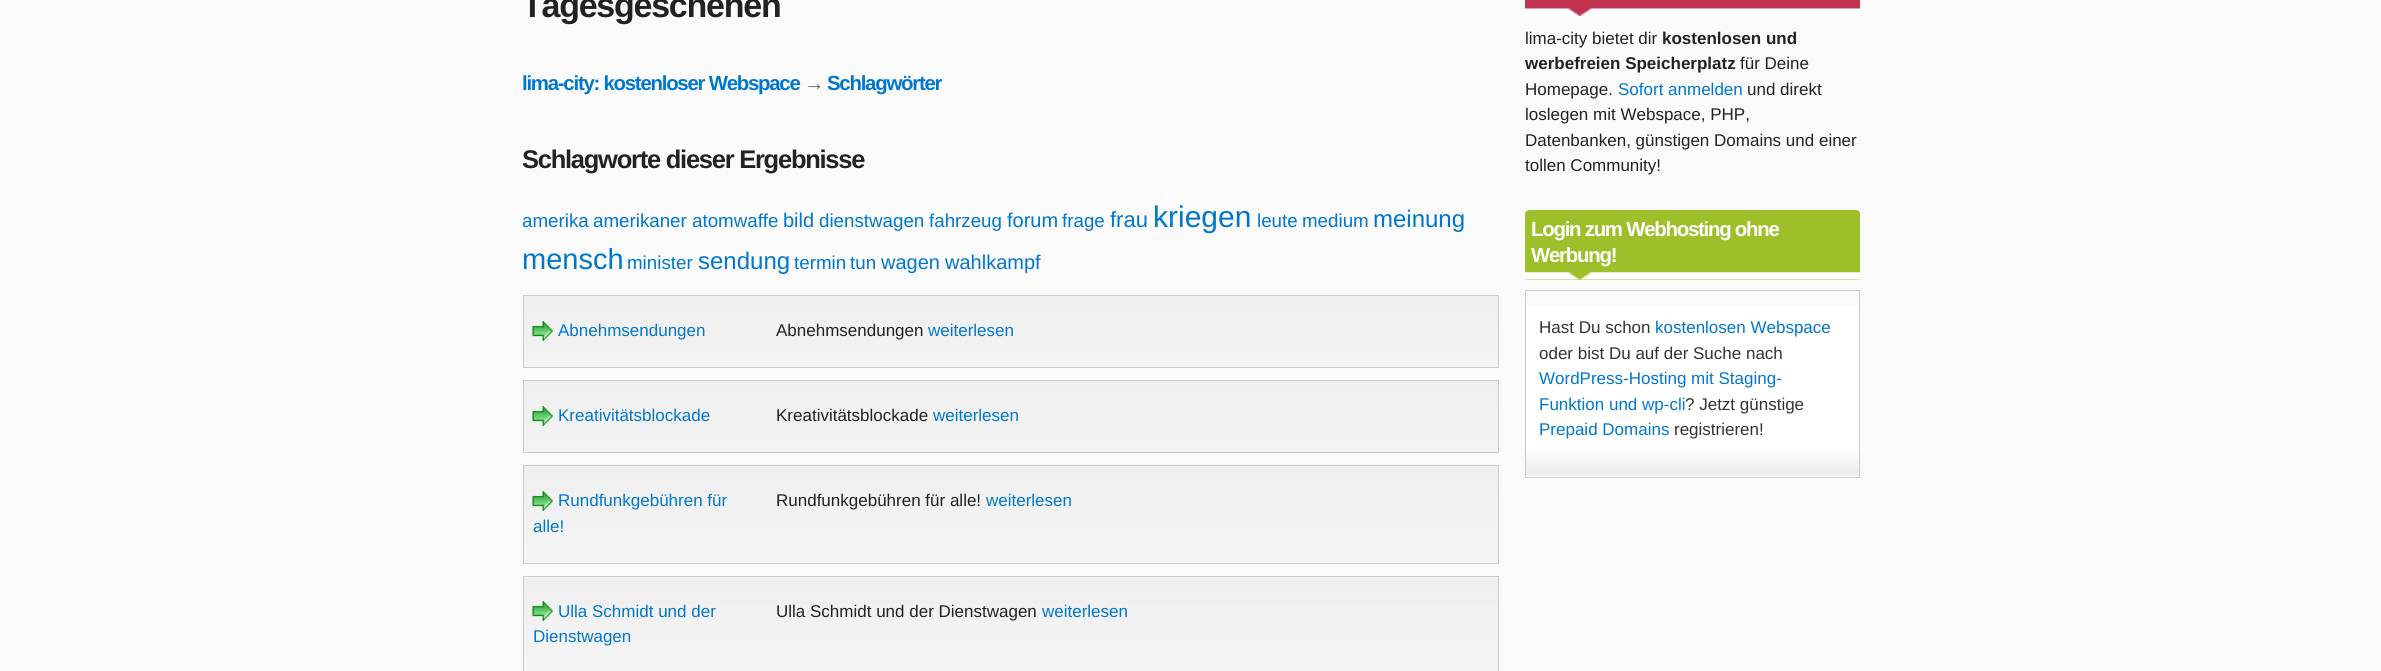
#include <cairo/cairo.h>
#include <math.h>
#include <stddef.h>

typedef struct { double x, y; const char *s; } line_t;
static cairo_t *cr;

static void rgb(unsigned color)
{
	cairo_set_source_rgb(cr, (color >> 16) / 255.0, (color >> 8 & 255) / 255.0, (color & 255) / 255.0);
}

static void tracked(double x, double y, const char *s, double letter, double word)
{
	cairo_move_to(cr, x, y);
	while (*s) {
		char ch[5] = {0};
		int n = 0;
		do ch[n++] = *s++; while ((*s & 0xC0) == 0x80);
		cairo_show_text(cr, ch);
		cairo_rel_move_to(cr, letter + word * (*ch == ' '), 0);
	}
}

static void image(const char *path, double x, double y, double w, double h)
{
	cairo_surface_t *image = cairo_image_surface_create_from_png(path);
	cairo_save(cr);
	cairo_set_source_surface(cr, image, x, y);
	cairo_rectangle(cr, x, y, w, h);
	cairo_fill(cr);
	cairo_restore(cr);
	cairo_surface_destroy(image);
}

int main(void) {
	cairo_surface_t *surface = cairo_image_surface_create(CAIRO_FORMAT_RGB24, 2381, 671);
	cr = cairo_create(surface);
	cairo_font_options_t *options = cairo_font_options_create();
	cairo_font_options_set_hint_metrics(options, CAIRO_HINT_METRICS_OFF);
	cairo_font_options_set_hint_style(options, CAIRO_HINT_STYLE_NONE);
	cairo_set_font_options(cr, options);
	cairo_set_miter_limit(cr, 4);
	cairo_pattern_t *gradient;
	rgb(0xfafafa);
	cairo_paint(cr);
	gradient = cairo_pattern_create_linear(1011, 296, 1011, 484);
	cairo_pattern_add_color_stop_rgba(gradient, 0, 0.937, 0.937, 0.937, 1);
	cairo_pattern_add_color_stop_rgba(gradient, 1, 0.98, 0.98, 0.98, 1);
	cairo_set_source(cr, gradient);
	cairo_pattern_destroy(gradient);
	cairo_rectangle(cr, 524, 296, 974, 70);
	cairo_fill(cr);
	gradient = cairo_pattern_create_linear(1011, 366, 1011, 554);
	cairo_pattern_add_color_stop_rgba(gradient, 0, 0.937, 0.937, 0.937, 1);
	cairo_pattern_add_color_stop_rgba(gradient, 1, 0.98, 0.98, 0.98, 1);
	cairo_set_source(cr, gradient);
	cairo_pattern_destroy(gradient);
	cairo_rectangle(cr, 523, 366, 976, 1);
	cairo_fill(cr);
	cairo_rectangle(cr, 523.5, 295.5, 975, 72);
	rgb(0xcccccc);
	cairo_set_line_width(cr, 1);
	cairo_stroke(cr);
	image("img/1.png", 532, 321, 21, 20);
	gradient = cairo_pattern_create_linear(1011, 381, 1011, 569);
	cairo_pattern_add_color_stop_rgba(gradient, 0, 0.937, 0.937, 0.937, 1);
	cairo_pattern_add_color_stop_rgba(gradient, 1, 0.98, 0.98, 0.98, 1);
	cairo_set_source(cr, gradient);
	cairo_pattern_destroy(gradient);
	cairo_rectangle(cr, 524, 381, 974, 70);
	cairo_fill(cr);
	gradient = cairo_pattern_create_linear(1011, 451, 1011, 639);
	cairo_pattern_add_color_stop_rgba(gradient, 0, 0.937, 0.937, 0.937, 1);
	cairo_pattern_add_color_stop_rgba(gradient, 1, 0.98, 0.98, 0.98, 1);
	cairo_set_source(cr, gradient);
	cairo_pattern_destroy(gradient);
	cairo_rectangle(cr, 523, 451, 976, 1);
	cairo_fill(cr);
	cairo_rectangle(cr, 523.5, 380.5, 975, 72);
	rgb(0xcccccc);
	cairo_stroke(cr);
	image("img/2.png", 532, 406, 21, 20);
	gradient = cairo_pattern_create_linear(1011, 466, 1011, 654);
	cairo_pattern_add_color_stop_rgba(gradient, 0, 0.937, 0.937, 0.937, 1);
	cairo_pattern_add_color_stop_rgba(gradient, 1, 0.98, 0.98, 0.98, 1);
	cairo_set_source(cr, gradient);
	cairo_pattern_destroy(gradient);
	cairo_rectangle(cr, 524, 466, 974, 97);
	cairo_fill(cr);
	cairo_rectangle(cr, 523.5, 465.5, 975, 98);
	rgb(0xcccccc);
	cairo_stroke(cr);
	image("img/2.png", 532, 491, 21, 20);
	gradient = cairo_pattern_create_linear(1011, 482, 1011, 670);
	cairo_pattern_add_color_stop_rgba(gradient, 0, 0.937, 0.937, 0.937, 1);
	cairo_pattern_add_color_stop_rgba(gradient, 1, 0.98, 0.98, 0.98, 1);
	cairo_set_source(cr, gradient);
	cairo_pattern_destroy(gradient);
	cairo_rectangle(cr, 523, 577, 976, 1);
	cairo_fill(cr);
	gradient = cairo_pattern_create_linear(1011, 577, 1011, 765);
	cairo_pattern_add_color_stop_rgba(gradient, 0, 0.937, 0.937, 0.937, 1);
	cairo_pattern_add_color_stop_rgba(gradient, 1, 0.98, 0.98, 0.98, 1);
	cairo_set_source(cr, gradient);
	cairo_pattern_destroy(gradient);
	cairo_rectangle(cr, 524, 578, 974, 93);
	cairo_fill(cr);
	cairo_rectangle(cr, 523.5, 576.5, 975, 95);
	rgb(0xcccccc);
	cairo_stroke(cr);
	image("img/3.png", 532, 601, 21, 20);
	rgb(0xc03452);
	cairo_rectangle(cr, 1525, 0, 335, 16);
	cairo_fill(cr);
	image("img/4.png", 1525, 8, 335, 8);
	rgb(0x9dc02a);
	cairo_new_path(cr);
	cairo_move_to(cr, 1529, 210);
	cairo_line_to(cr, 1856, 210);
	cairo_curve_to(cr, 1858, 210, 1860, 212, 1860, 214);
	cairo_line_to(cr, 1860, 280);
	cairo_line_to(cr, 1525, 280);
	cairo_line_to(cr, 1525, 214);
	cairo_curve_to(cr, 1525, 212, 1527, 210, 1529, 210);
	cairo_close_path(cr);
	cairo_fill(cr);
	image("img/5.png", 1525, 272, 335, 8);
	image("img/6.png", 1526, 305, 333, 171);
	cairo_rectangle(cr, 1525.5, 290.5, 334, 187);
	rgb(0xcccccc);
	cairo_stroke(cr);
	cairo_select_font_face(cr, "Liberation Sans", CAIRO_FONT_SLANT_NORMAL, CAIRO_FONT_WEIGHT_BOLD);
	cairo_set_font_size(cr, 34);
	rgb(0x222222);
	tracked(522, 17, "Tagesgeschehen", -1.25, 0);
	cairo_set_font_size(cr, 20.4);
	rgb(0x0077cc);
	tracked(522, 90, "lima-city: kostenloser Webspace", -1.25, 0);
	rgb(0x666666);
	tracked(804, 90, "→", -1.25, 0);
	rgb(0x0077cc);
	tracked(827, 90, "Schlagwörter", -1.25, 0);
	cairo_set_font_size(cr, 25.5);
	rgb(0x222222);
	tracked(522, 168, "Schlagworte dieser Ergebnisse", -1.25, 0);
	cairo_select_font_face(cr, "Liberation Sans", CAIRO_FONT_SLANT_NORMAL, CAIRO_FONT_WEIGHT_NORMAL);
	cairo_set_font_size(cr, 18.75);
	rgb(0x0077cc);
	{
		static const line_t items[] = {
			{522, 227, "amerika"},
			{593, 227, "amerikaner"},
			{692, 227, "atomwaffe"},
		};
		for (size_t i = 0; i < sizeof items / sizeof *items; i++) {
			cairo_move_to(cr, items[i].x, items[i].y);
			cairo_show_text(cr, items[i].s);
		}
	}
	cairo_set_font_size(cr, 20);
	cairo_move_to(cr, 783, 227);
	cairo_show_text(cr, "bild");
	cairo_set_font_size(cr, 18.75);
	cairo_move_to(cr, 819, 227);
	cairo_show_text(cr, "dienstwagen");
	cairo_move_to(cr, 929, 227);
	cairo_show_text(cr, "fahrzeug");
	cairo_set_font_size(cr, 20);
	cairo_move_to(cr, 1007, 227);
	cairo_show_text(cr, "forum");
	cairo_set_font_size(cr, 18.75);
	cairo_move_to(cr, 1062, 227);
	cairo_show_text(cr, "frage");
	cairo_set_font_size(cr, 22);
	cairo_move_to(cr, 1110, 227);
	cairo_show_text(cr, "frau");
	cairo_set_font_size(cr, 30);
	cairo_move_to(cr, 1153, 227);
	cairo_show_text(cr, "kriegen");
	cairo_set_font_size(cr, 18.75);
	cairo_move_to(cr, 1257, 227);
	cairo_show_text(cr, "leute");
	cairo_move_to(cr, 1302, 227);
	cairo_show_text(cr, "medium");
	cairo_set_font_size(cr, 24);
	cairo_move_to(cr, 1373, 227);
	cairo_show_text(cr, "meinung");
	cairo_set_font_size(cr, 29);
	cairo_move_to(cr, 522, 269);
	cairo_show_text(cr, "mensch");
	cairo_set_font_size(cr, 18.75);
	cairo_move_to(cr, 627, 269);
	cairo_show_text(cr, "minister");
	cairo_set_font_size(cr, 24);
	cairo_move_to(cr, 698, 269);
	cairo_show_text(cr, "sendung");
	cairo_set_font_size(cr, 18.75);
	cairo_move_to(cr, 794, 269);
	cairo_show_text(cr, "termin");
	cairo_move_to(cr, 850, 269);
	cairo_show_text(cr, "tun");
	cairo_set_font_size(cr, 20);
	cairo_move_to(cr, 881, 269);
	cairo_show_text(cr, "wagen");
	cairo_move_to(cr, 945, 269);
	cairo_show_text(cr, "wahlkampf");
	cairo_set_font_size(cr, 17);
	cairo_move_to(cr, 558, 336);
	cairo_show_text(cr, "Abnehmsendungen");
	rgb(0x222222);
	cairo_move_to(cr, 776, 336);
	cairo_show_text(cr, "Abnehmsendungen");
	rgb(0x0077cc);
	cairo_move_to(cr, 928, 336);
	cairo_show_text(cr, "weiterlesen");
	cairo_move_to(cr, 558, 421);
	cairo_show_text(cr, "Kreativitätsblockade");
	rgb(0x222222);
	cairo_move_to(cr, 776, 421);
	cairo_show_text(cr, "Kreativitätsblockade");
	rgb(0x0077cc);
	{
		static const line_t items[] = {
			{933, 421, "weiterlesen"},
			{558, 506, "Rundfunkgebühren für"},
			{533, 532, "alle!"},
		};
		for (size_t i = 0; i < sizeof items / sizeof *items; i++) {
			cairo_move_to(cr, items[i].x, items[i].y);
			cairo_show_text(cr, items[i].s);
		}
	}
	rgb(0x222222);
	cairo_move_to(cr, 776, 506);
	cairo_show_text(cr, "Rundfunkgebühren für alle!");
	rgb(0x0077cc);
	{
		static const line_t items[] = {
			{986, 506, "weiterlesen"},
			{558, 617, "Ulla Schmidt und der"},
			{533, 642, "Dienstwagen"},
		};
		for (size_t i = 0; i < sizeof items / sizeof *items; i++) {
			cairo_move_to(cr, items[i].x, items[i].y);
			cairo_show_text(cr, items[i].s);
		}
	}
	rgb(0x222222);
	cairo_move_to(cr, 776, 617);
	cairo_show_text(cr, "Ulla Schmidt und der Dienstwagen");
	rgb(0x0077cc);
	cairo_move_to(cr, 1042, 617);
	cairo_show_text(cr, "weiterlesen");
	rgb(0x222222);
	cairo_move_to(cr, 1525, 44);
	cairo_show_text(cr, "lima-city bietet dir");
	cairo_select_font_face(cr, "Liberation Sans", CAIRO_FONT_SLANT_NORMAL, CAIRO_FONT_WEIGHT_BOLD);
	cairo_move_to(cr, 1662, 44);
	cairo_show_text(cr, "kostenlosen und");
	cairo_move_to(cr, 1525, 69);
	cairo_show_text(cr, "werbefreien Speicherplatz");
	cairo_select_font_face(cr, "Liberation Sans", CAIRO_FONT_SLANT_NORMAL, CAIRO_FONT_WEIGHT_NORMAL);
	cairo_move_to(cr, 1740, 69);
	cairo_show_text(cr, "für Deine");
	cairo_move_to(cr, 1525, 95);
	cairo_show_text(cr, "Homepage.");
	rgb(0x0077cc);
	cairo_move_to(cr, 1618, 95);
	cairo_show_text(cr, "Sofort anmelden");
	rgb(0x222222);
	{
		static const line_t items[] = {
			{1747, 95, "und direkt"},
			{1525, 120, "loslegen mit Webspace, PHP,"},
			{1525, 146, "Datenbanken, günstigen Domains und einer"},
			{1525, 171, "tollen Community!"},
		};
		for (size_t i = 0; i < sizeof items / sizeof *items; i++) {
			cairo_move_to(cr, items[i].x, items[i].y);
			cairo_show_text(cr, items[i].s);
		}
	}
	cairo_select_font_face(cr, "Liberation Sans", CAIRO_FONT_SLANT_NORMAL, CAIRO_FONT_WEIGHT_BOLD);
	cairo_set_font_size(cr, 20.4);
	rgb(0xffffff);
	tracked(1531, 236, "Login zum Webhosting ohne", -1.25, 0);
	tracked(1531, 262, "Werbung!", -1.25, 0);
	cairo_select_font_face(cr, "Liberation Sans", CAIRO_FONT_SLANT_NORMAL, CAIRO_FONT_WEIGHT_NORMAL);
	cairo_set_font_size(cr, 17);
	rgb(0x333333);
	cairo_move_to(cr, 1539, 333);
	cairo_show_text(cr, "Hast Du schon");
	rgb(0x0077cc);
	cairo_move_to(cr, 1655, 333);
	cairo_show_text(cr, "kostenlosen Webspace");
	rgb(0x333333);
	cairo_move_to(cr, 1539, 359);
	cairo_show_text(cr, "oder bist Du auf der Suche nach");
	rgb(0x0077cc);
	cairo_move_to(cr, 1539, 384);
	cairo_show_text(cr, "WordPress-Hosting mit Staging-");
	cairo_move_to(cr, 1539, 410);
	cairo_show_text(cr, "Funktion und wp-cli");
	rgb(0x333333);
	cairo_move_to(cr, 1685, 410);
	cairo_show_text(cr, "? Jetzt günstige");
	rgb(0x0077cc);
	cairo_move_to(cr, 1539, 435);
	cairo_show_text(cr, "Prepaid Domains");
	rgb(0x333333);
	cairo_move_to(cr, 1674, 435);
	cairo_show_text(cr, "registrieren!");
	cairo_surface_write_to_png(surface, "page.png");
	cairo_font_options_destroy(options);
	cairo_destroy(cr);
	cairo_surface_destroy(surface);
	return 0;
}
